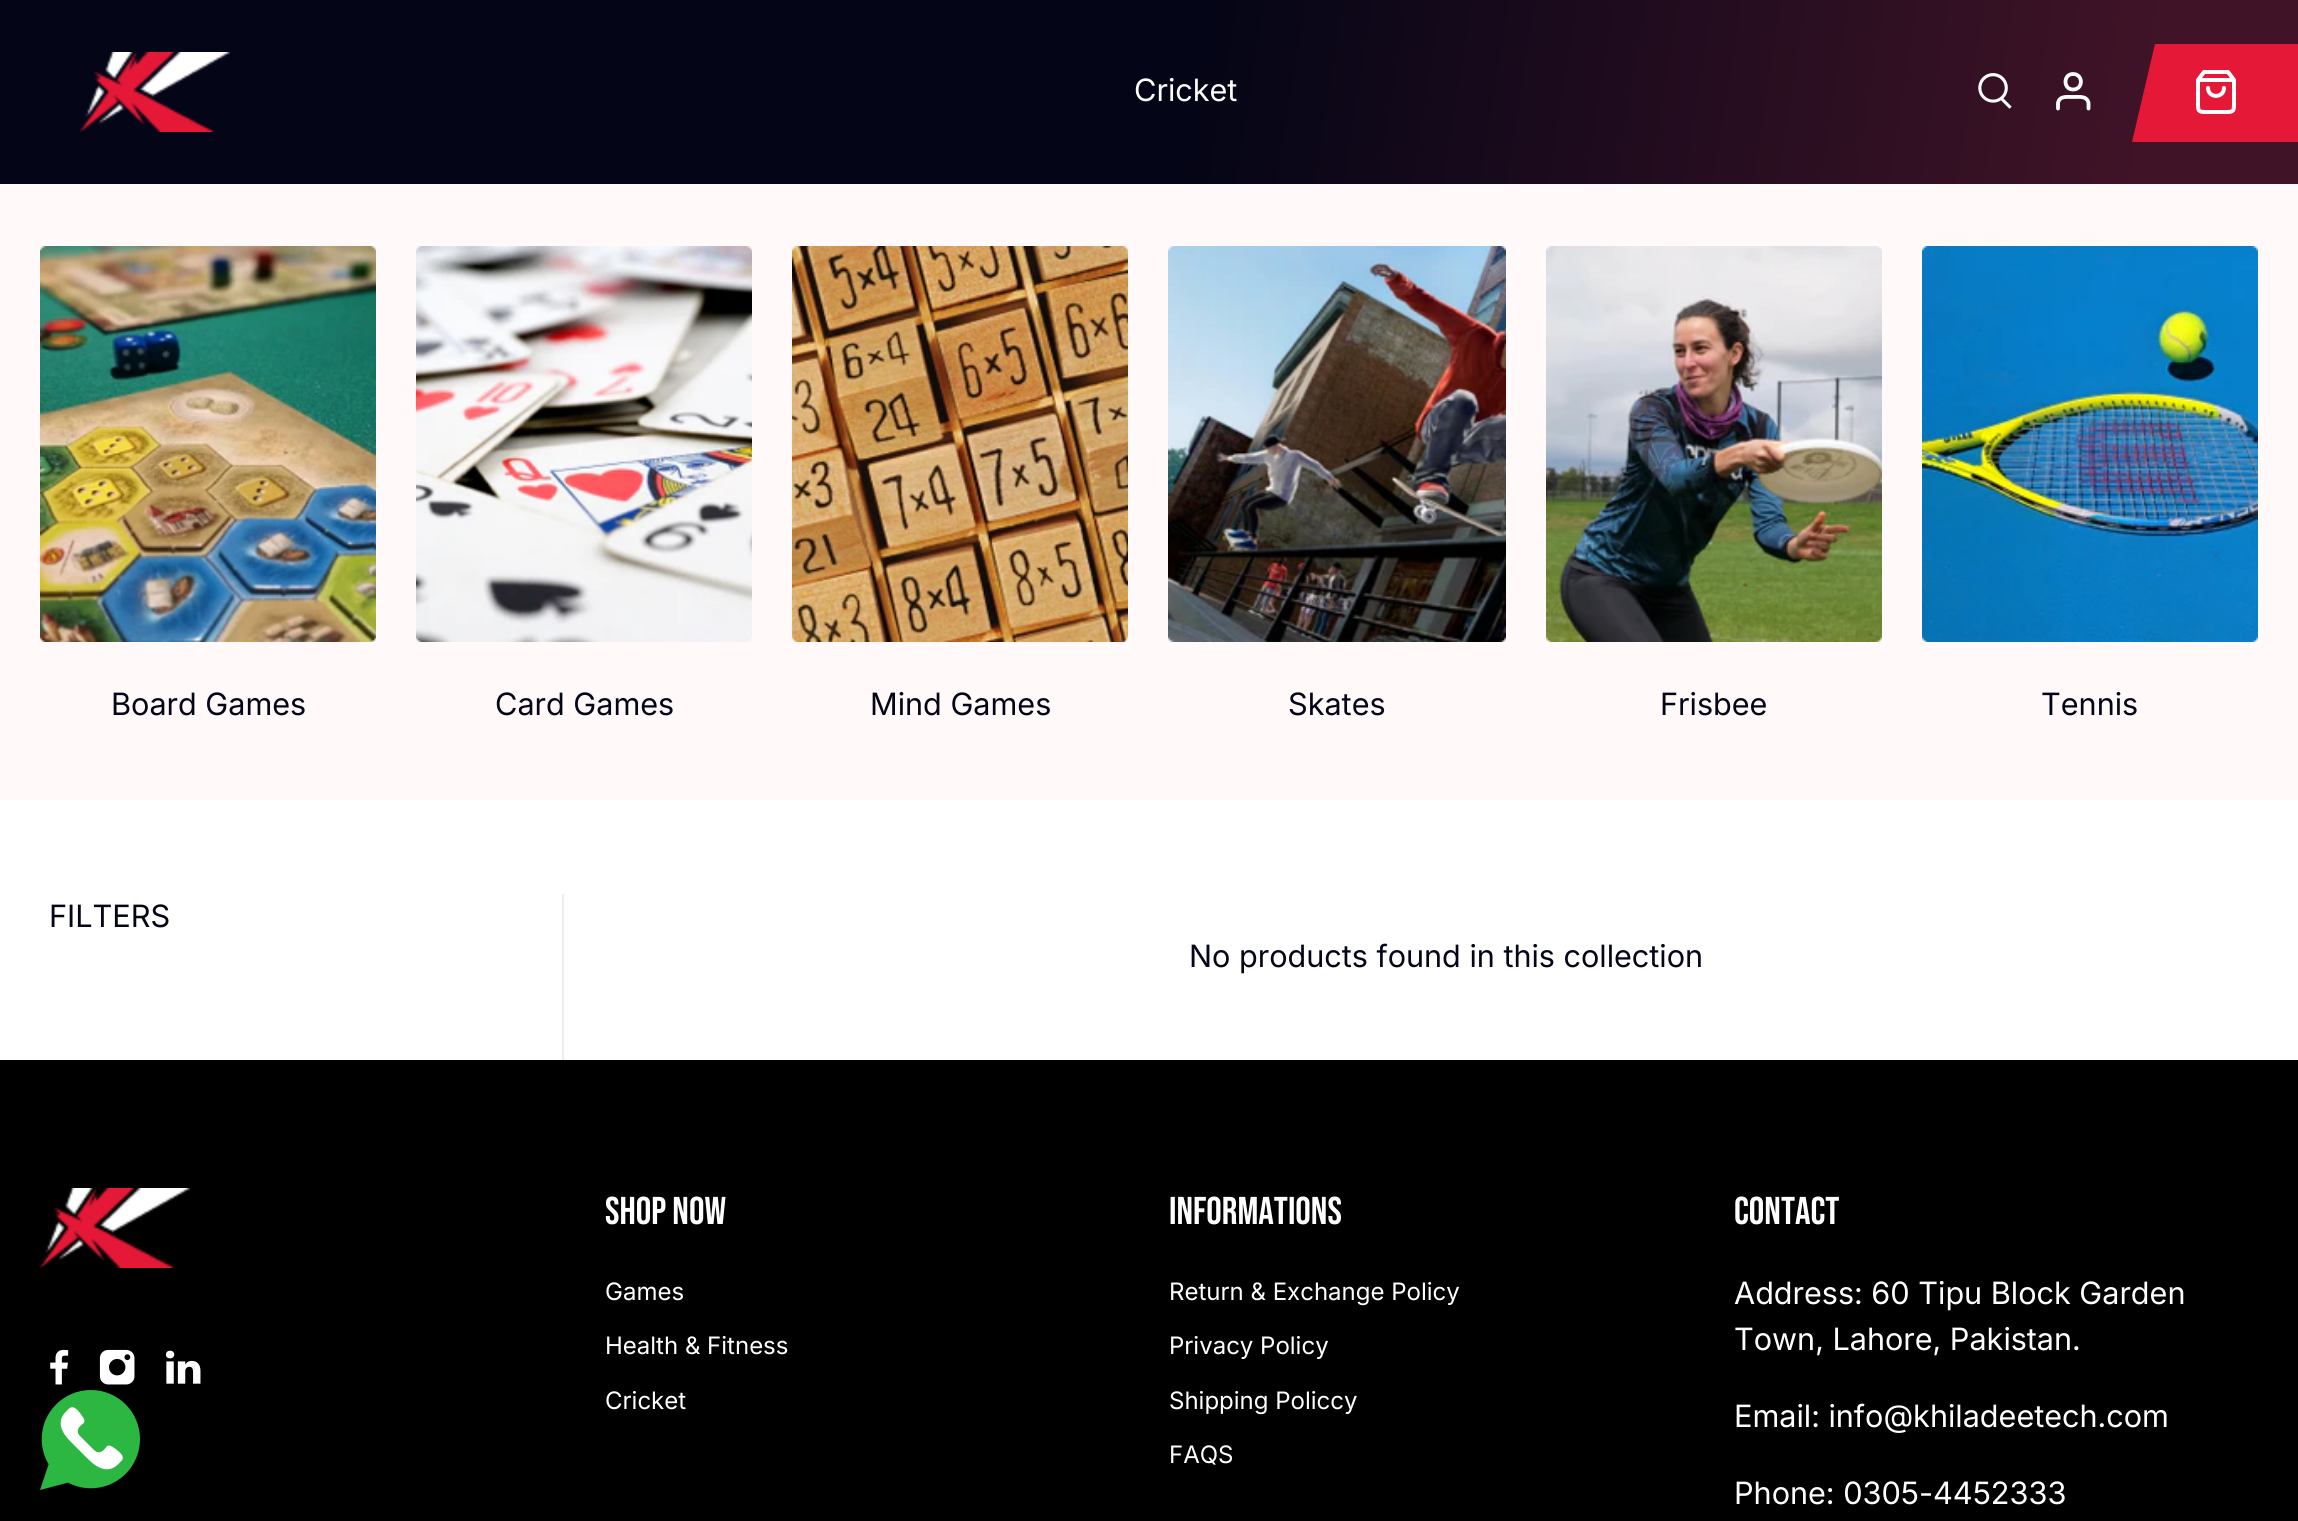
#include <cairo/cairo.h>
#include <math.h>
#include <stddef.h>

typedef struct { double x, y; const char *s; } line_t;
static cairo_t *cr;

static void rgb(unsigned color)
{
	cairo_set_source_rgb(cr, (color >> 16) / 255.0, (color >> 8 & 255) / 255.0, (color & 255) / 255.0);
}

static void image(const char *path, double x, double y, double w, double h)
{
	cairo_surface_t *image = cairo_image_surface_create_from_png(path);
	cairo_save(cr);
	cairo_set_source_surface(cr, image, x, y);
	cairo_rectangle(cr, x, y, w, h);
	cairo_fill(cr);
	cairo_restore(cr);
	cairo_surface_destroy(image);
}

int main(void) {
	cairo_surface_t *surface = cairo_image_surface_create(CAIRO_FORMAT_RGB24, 2298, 1521);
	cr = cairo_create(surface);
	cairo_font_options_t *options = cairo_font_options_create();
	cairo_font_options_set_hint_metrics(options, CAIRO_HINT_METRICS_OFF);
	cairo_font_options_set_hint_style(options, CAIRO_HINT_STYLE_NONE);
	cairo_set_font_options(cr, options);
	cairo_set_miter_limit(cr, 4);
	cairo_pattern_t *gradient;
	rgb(0xffffff);
	cairo_paint(cr);
	gradient = cairo_pattern_create_linear(2284, 273, 14, -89);
	cairo_pattern_add_color_stop_rgba(gradient, 0.07, 0.251, 0.075, 0.153, 1);
	cairo_pattern_add_color_stop_rgba(gradient, 0.48, 0.016, 0.02, 0.086, 1);
	cairo_set_source(cr, gradient);
	cairo_pattern_destroy(gradient);
	cairo_rectangle(cr, 0, 0, 2298, 184);
	cairo_fill(cr);
	image("img/1.png", 80, 52, 150, 80);
	image("img/2.png", 1978, 73, 34, 36);
	cairo_new_path(cr);
	cairo_move_to(cr, 2088.5, 108.5);
	cairo_line_to(cr, 2088.5, 103);
	cairo_curve_to(cr, 2087, 95.5, 2079, 97, 2073, 97);
	cairo_curve_to(cr, 2067.5, 97, 2059.5, 95.5, 2058, 103);
	cairo_line_to(cr, 2058, 108.5);
	cairo_move_to(cr, 2073, 89.5);
	cairo_curve_to(cr, 2083.5, 89.5, 2083.5, 74, 2073, 74);
	cairo_curve_to(cr, 2063, 74, 2063, 89.5, 2073, 89.5);
	cairo_close_path(cr);
	rgb(0xffffff);
	cairo_set_line_width(cr, 3.8);
	cairo_set_line_cap(cr, CAIRO_LINE_CAP_ROUND);
	cairo_set_line_join(cr, CAIRO_LINE_JOIN_ROUND);
	cairo_stroke(cr);
	rgb(0xe51937);
	cairo_new_path(cr);
	cairo_move_to(cr, 2155, 44);
	cairo_line_to(cr, 2298, 44);
	cairo_line_to(cr, 2298, 142);
	cairo_line_to(cr, 2132, 142);
	cairo_close_path(cr);
	cairo_fill(cr);
	cairo_new_path(cr);
	cairo_move_to(cr, 2204, 72);
	cairo_line_to(cr, 2198, 80);
	cairo_line_to(cr, 2198, 103.5);
	cairo_curve_to(cr, 2198, 111.5, 2198.5, 112, 2206.5, 112);
	cairo_line_to(cr, 2225.5, 112);
	cairo_curve_to(cr, 2233.5, 112, 2234, 111.5, 2234, 103.5);
	cairo_line_to(cr, 2234, 80);
	cairo_line_to(cr, 2228, 72);
	cairo_close_path(cr);
	cairo_move_to(cr, 2198, 80);
	cairo_line_to(cr, 2234, 80);
	cairo_move_to(cr, 2224, 88);
	cairo_curve_to(cr, 2224, 98.5, 2208, 98.5, 2208, 88);
	rgb(0xffffff);
	cairo_set_line_width(cr, 4);
	cairo_stroke(cr);
	rgb(0xfff9fa);
	cairo_rectangle(cr, 0, 184, 2298, 616);
	cairo_fill(cr);
	image("img/3.png", 40, 246, 336, 396);
	image("img/4.png", 416, 246, 336, 396);
	image("img/5.png", 792, 246, 336, 396);
	image("img/6.png", 1168, 246, 338, 396);
	image("img/7.png", 1546, 246, 336, 396);
	image("img/8.png", 1922, 246, 336, 396);
	rgb(0xededed);
	cairo_rectangle(cr, 562, 894, 2, 166);
	cairo_fill(cr);
	rgb(0x000000);
	cairo_rectangle(cr, 0, 1060, 2298, 461);
	cairo_fill(cr);
	image("img/9.png", 40, 1390, 100, 100);
	image("img/10.png", 40, 1188, 150, 80);
	image("img/11.png", 50, 1349, 19, 36);
	image("img/12.png", 99, 1349, 36, 36);
	image("img/13.png", 165, 1350, 36, 34);
	cairo_select_font_face(cr, "Inter", CAIRO_FONT_SLANT_NORMAL, CAIRO_FONT_WEIGHT_NORMAL);
	cairo_set_font_size(cr, 30.75);
	rgb(0xffffff);
	cairo_move_to(cr, 1134, 101);
	cairo_show_text(cr, "Cricket");
	rgb(0x040516);
	{
		static const line_t items[] = {
			{111, 715, "Board Games"},
			{495, 715, "Card Games"},
			{870, 715, "Mind Games"},
			{1288, 715, "Skates"},
			{1660, 715, "Frisbee"},
			{2041, 715, "Tennis"},
			{49, 927, "FILTERS"},
			{1189, 967, "No products found in this collection"},
		};
		for (size_t i = 0; i < sizeof items / sizeof *items; i++) {
			cairo_move_to(cr, items[i].x, items[i].y);
			cairo_show_text(cr, items[i].s);
		}
	}
	cairo_select_font_face(cr, "Bebas Neue", CAIRO_FONT_SLANT_NORMAL, CAIRO_FONT_WEIGHT_NORMAL);
	cairo_set_font_size(cr, 38.75);
	rgb(0xffffff);
	cairo_move_to(cr, 605, 1224);
	cairo_show_text(cr, "SHOP NOW");
	cairo_select_font_face(cr, "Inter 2", CAIRO_FONT_SLANT_NORMAL, CAIRO_FONT_WEIGHT_NORMAL);
	cairo_set_font_size(cr, 24);
	{
		static const line_t items[] = {
			{605, 1300, "Games"},
			{605, 1354, "Health & Fitness"},
			{605, 1409, "Cricket"},
		};
		for (size_t i = 0; i < sizeof items / sizeof *items; i++) {
			cairo_move_to(cr, items[i].x, items[i].y);
			cairo_show_text(cr, items[i].s);
		}
	}
	cairo_select_font_face(cr, "Bebas Neue", CAIRO_FONT_SLANT_NORMAL, CAIRO_FONT_WEIGHT_NORMAL);
	cairo_set_font_size(cr, 38.75);
	cairo_move_to(cr, 1169, 1224);
	cairo_show_text(cr, "Informations");
	cairo_select_font_face(cr, "Inter 2", CAIRO_FONT_SLANT_NORMAL, CAIRO_FONT_WEIGHT_NORMAL);
	cairo_set_font_size(cr, 24);
	{
		static const line_t items[] = {
			{1169, 1300, "Return & Exchange Policy"},
			{1169, 1354, "Privacy Policy"},
			{1169, 1409, "Shipping Policcy"},
			{1169, 1463, "FAQS"},
		};
		for (size_t i = 0; i < sizeof items / sizeof *items; i++) {
			cairo_move_to(cr, items[i].x, items[i].y);
			cairo_show_text(cr, items[i].s);
		}
	}
	cairo_select_font_face(cr, "Bebas Neue", CAIRO_FONT_SLANT_NORMAL, CAIRO_FONT_WEIGHT_NORMAL);
	cairo_set_font_size(cr, 38.75);
	cairo_move_to(cr, 1734, 1224);
	cairo_show_text(cr, "CONTACT");
	cairo_select_font_face(cr, "Inter", CAIRO_FONT_SLANT_NORMAL, CAIRO_FONT_WEIGHT_NORMAL);
	cairo_set_font_size(cr, 30.75);
	{
		static const line_t items[] = {
			{1734, 1304, "Address: 60 Tipu Block Garden"},
			{1734, 1350, "Town, Lahore, Pakistan."},
			{1734, 1427, "Email: info@khiladeetech.com"},
			{1734, 1504, "Phone: 0305-4452333"},
		};
		for (size_t i = 0; i < sizeof items / sizeof *items; i++) {
			cairo_move_to(cr, items[i].x, items[i].y);
			cairo_show_text(cr, items[i].s);
		}
	}
	cairo_surface_write_to_png(surface, "page.png");
	cairo_font_options_destroy(options);
	cairo_destroy(cr);
	cairo_surface_destroy(surface);
	return 0;
}
